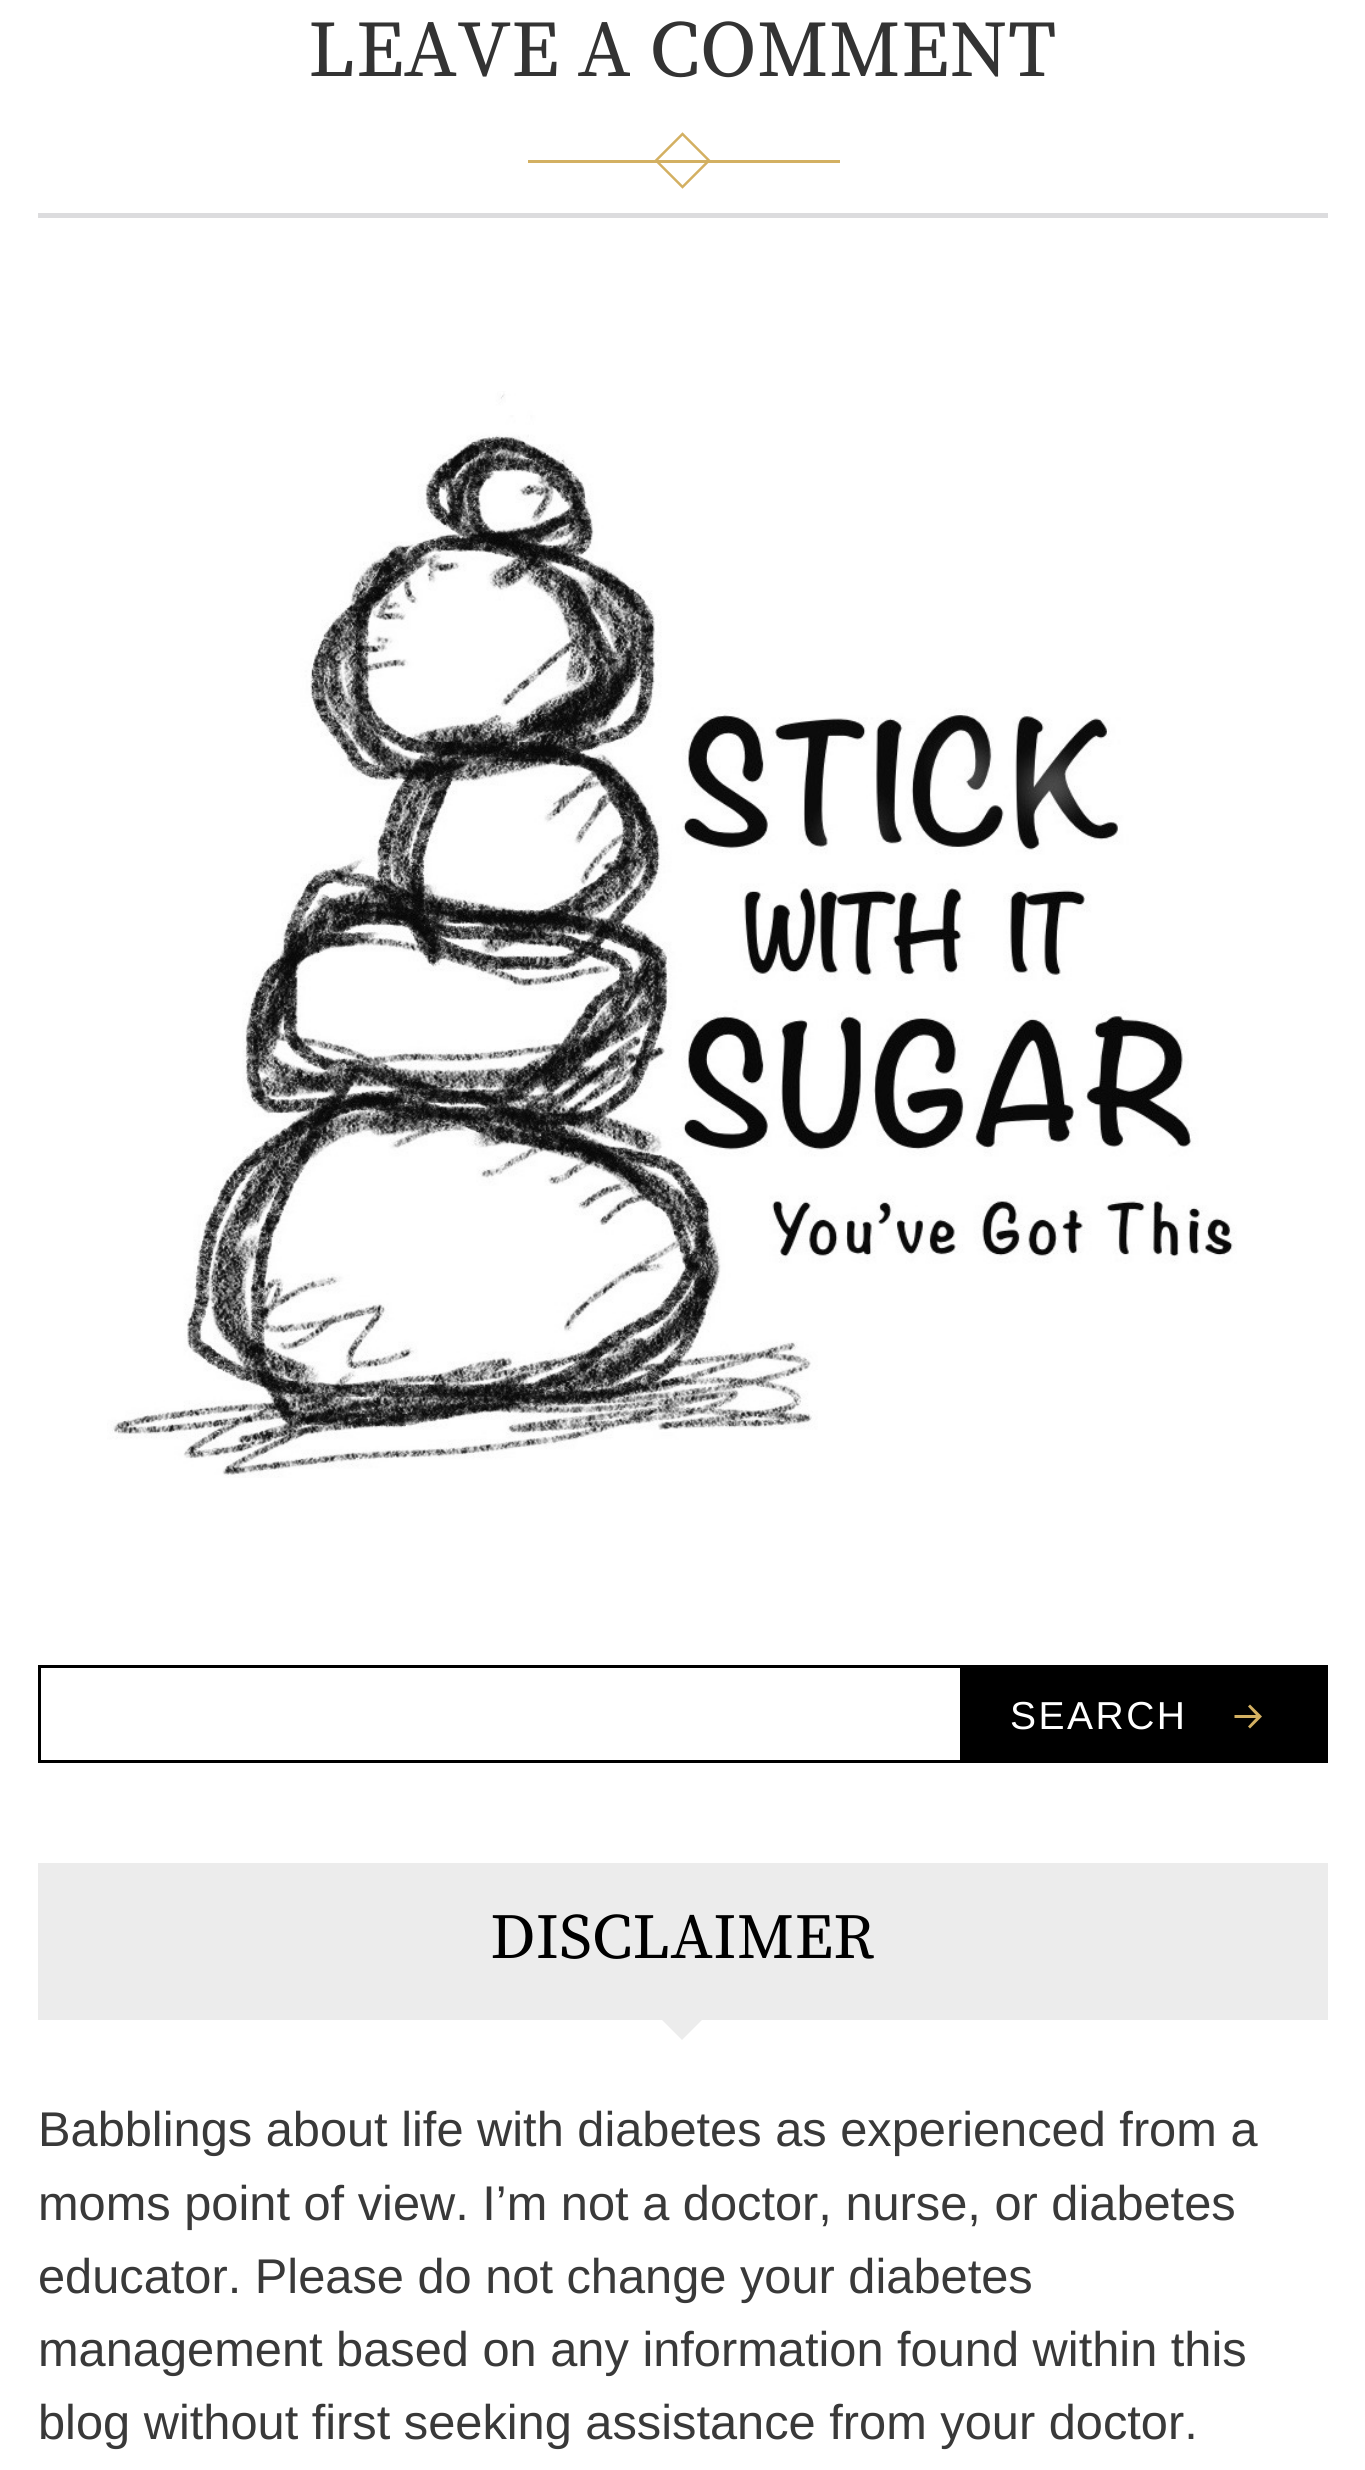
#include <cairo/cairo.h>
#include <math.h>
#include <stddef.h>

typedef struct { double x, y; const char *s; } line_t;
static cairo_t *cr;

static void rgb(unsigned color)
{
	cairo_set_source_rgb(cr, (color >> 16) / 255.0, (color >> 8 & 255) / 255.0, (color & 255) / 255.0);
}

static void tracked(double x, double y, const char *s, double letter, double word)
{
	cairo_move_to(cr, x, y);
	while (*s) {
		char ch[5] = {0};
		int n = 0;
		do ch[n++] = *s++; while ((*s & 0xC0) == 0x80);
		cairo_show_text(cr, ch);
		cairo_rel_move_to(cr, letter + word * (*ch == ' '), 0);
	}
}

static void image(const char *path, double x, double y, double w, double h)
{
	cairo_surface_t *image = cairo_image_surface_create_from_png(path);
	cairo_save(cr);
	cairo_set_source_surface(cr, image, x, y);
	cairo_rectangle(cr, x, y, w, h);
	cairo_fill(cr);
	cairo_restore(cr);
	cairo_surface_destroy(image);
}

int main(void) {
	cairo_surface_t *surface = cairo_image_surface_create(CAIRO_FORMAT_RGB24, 1365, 2470);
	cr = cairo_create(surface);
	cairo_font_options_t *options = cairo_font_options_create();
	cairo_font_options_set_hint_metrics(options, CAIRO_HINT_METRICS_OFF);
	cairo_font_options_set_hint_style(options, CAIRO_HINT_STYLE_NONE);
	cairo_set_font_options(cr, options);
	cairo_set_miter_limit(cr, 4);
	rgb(0xffffff);
	cairo_paint(cr);
	rgb(0xd3b062);
	cairo_rectangle(cr, 528, 160, 312, 3);
	cairo_fill(cr);
	cairo_new_path(cr);
	cairo_move_to(cr, 682.5, 134);
	cairo_line_to(cr, 709, 160.5);
	cairo_line_to(cr, 682.5, 187);
	cairo_line_to(cr, 656, 160.5);
	cairo_close_path(cr);
	cairo_set_line_width(cr, 2.5);
	cairo_stroke(cr);
	rgb(0xdcdcde);
	cairo_rectangle(cr, 38, 213, 1290, 5);
	cairo_fill(cr);
	image("img/1.png", 107, 391, 1130, 1087);
	cairo_rectangle(cr, 39.5, 1666.5, 1287, 95);
	rgb(0x000000);
	cairo_set_line_width(cr, 3);
	cairo_stroke(cr);
	cairo_rectangle(cr, 960, 1668, 365, 92);
	cairo_fill(cr);
	rgb(0xd3b062);
	cairo_new_path(cr);
	cairo_move_to(cr, 1250, 1704.5);
	cairo_line_to(cr, 1262, 1716.5);
	cairo_line_to(cr, 1250, 1728.5);
	cairo_line_to(cr, 1248, 1726.5);
	cairo_line_to(cr, 1256, 1718);
	cairo_line_to(cr, 1234.5, 1718);
	cairo_line_to(cr, 1234.5, 1715);
	cairo_line_to(cr, 1256, 1715);
	cairo_line_to(cr, 1248, 1706.5);
	cairo_close_path(cr);
	cairo_fill(cr);
	rgb(0xececec);
	cairo_rectangle(cr, 38, 1863, 1290, 157);
	cairo_fill(cr);
	cairo_new_path(cr);
	cairo_move_to(cr, 662, 2020);
	cairo_line_to(cr, 702, 2020);
	cairo_line_to(cr, 682, 2040);
	cairo_close_path(cr);
	cairo_fill(cr);
	cairo_select_font_face(cr, "Source Serif Pro", CAIRO_FONT_SLANT_NORMAL, CAIRO_FONT_WEIGHT_NORMAL);
	cairo_set_font_size(cr, 80);
	rgb(0x333333);
	cairo_move_to(cr, 308, 76);
	cairo_show_text(cr, "LEAVE A COMMENT");
	cairo_select_font_face(cr, "Arimo", CAIRO_FONT_SLANT_NORMAL, CAIRO_FONT_WEIGHT_NORMAL);
	cairo_set_font_size(cr, 39);
	rgb(0xffffff);
	tracked(1010, 1729, "SEARCH", 2.5, 0);
	cairo_select_font_face(cr, "Source Serif Pro", CAIRO_FONT_SLANT_NORMAL, CAIRO_FONT_WEIGHT_NORMAL);
	cairo_set_font_size(cr, 64);
	rgb(0x000000);
	cairo_move_to(cr, 490, 1958);
	cairo_show_text(cr, "DISCLAIMER");
	cairo_select_font_face(cr, "Arimo", CAIRO_FONT_SLANT_NORMAL, CAIRO_FONT_WEIGHT_NORMAL);
	cairo_set_font_size(cr, 48.75);
	rgb(0x393939);
	{
		static const line_t items[] = {
			{38, 2146, "Babblings about life with diabetes as experienced from a"},
			{38, 2220, "moms point of view. I’m not a doctor, nurse, or diabetes"},
			{38, 2293, "educator. Please do not change your diabetes"},
			{38, 2366, "management based on any information found within this"},
			{38, 2439, "blog without first seeking assistance from your doctor."},
		};
		for (size_t i = 0; i < sizeof items / sizeof *items; i++) {
			cairo_move_to(cr, items[i].x, items[i].y);
			cairo_show_text(cr, items[i].s);
		}
	}
	cairo_surface_write_to_png(surface, "page.png");
	cairo_font_options_destroy(options);
	cairo_destroy(cr);
	cairo_surface_destroy(surface);
	return 0;
}
